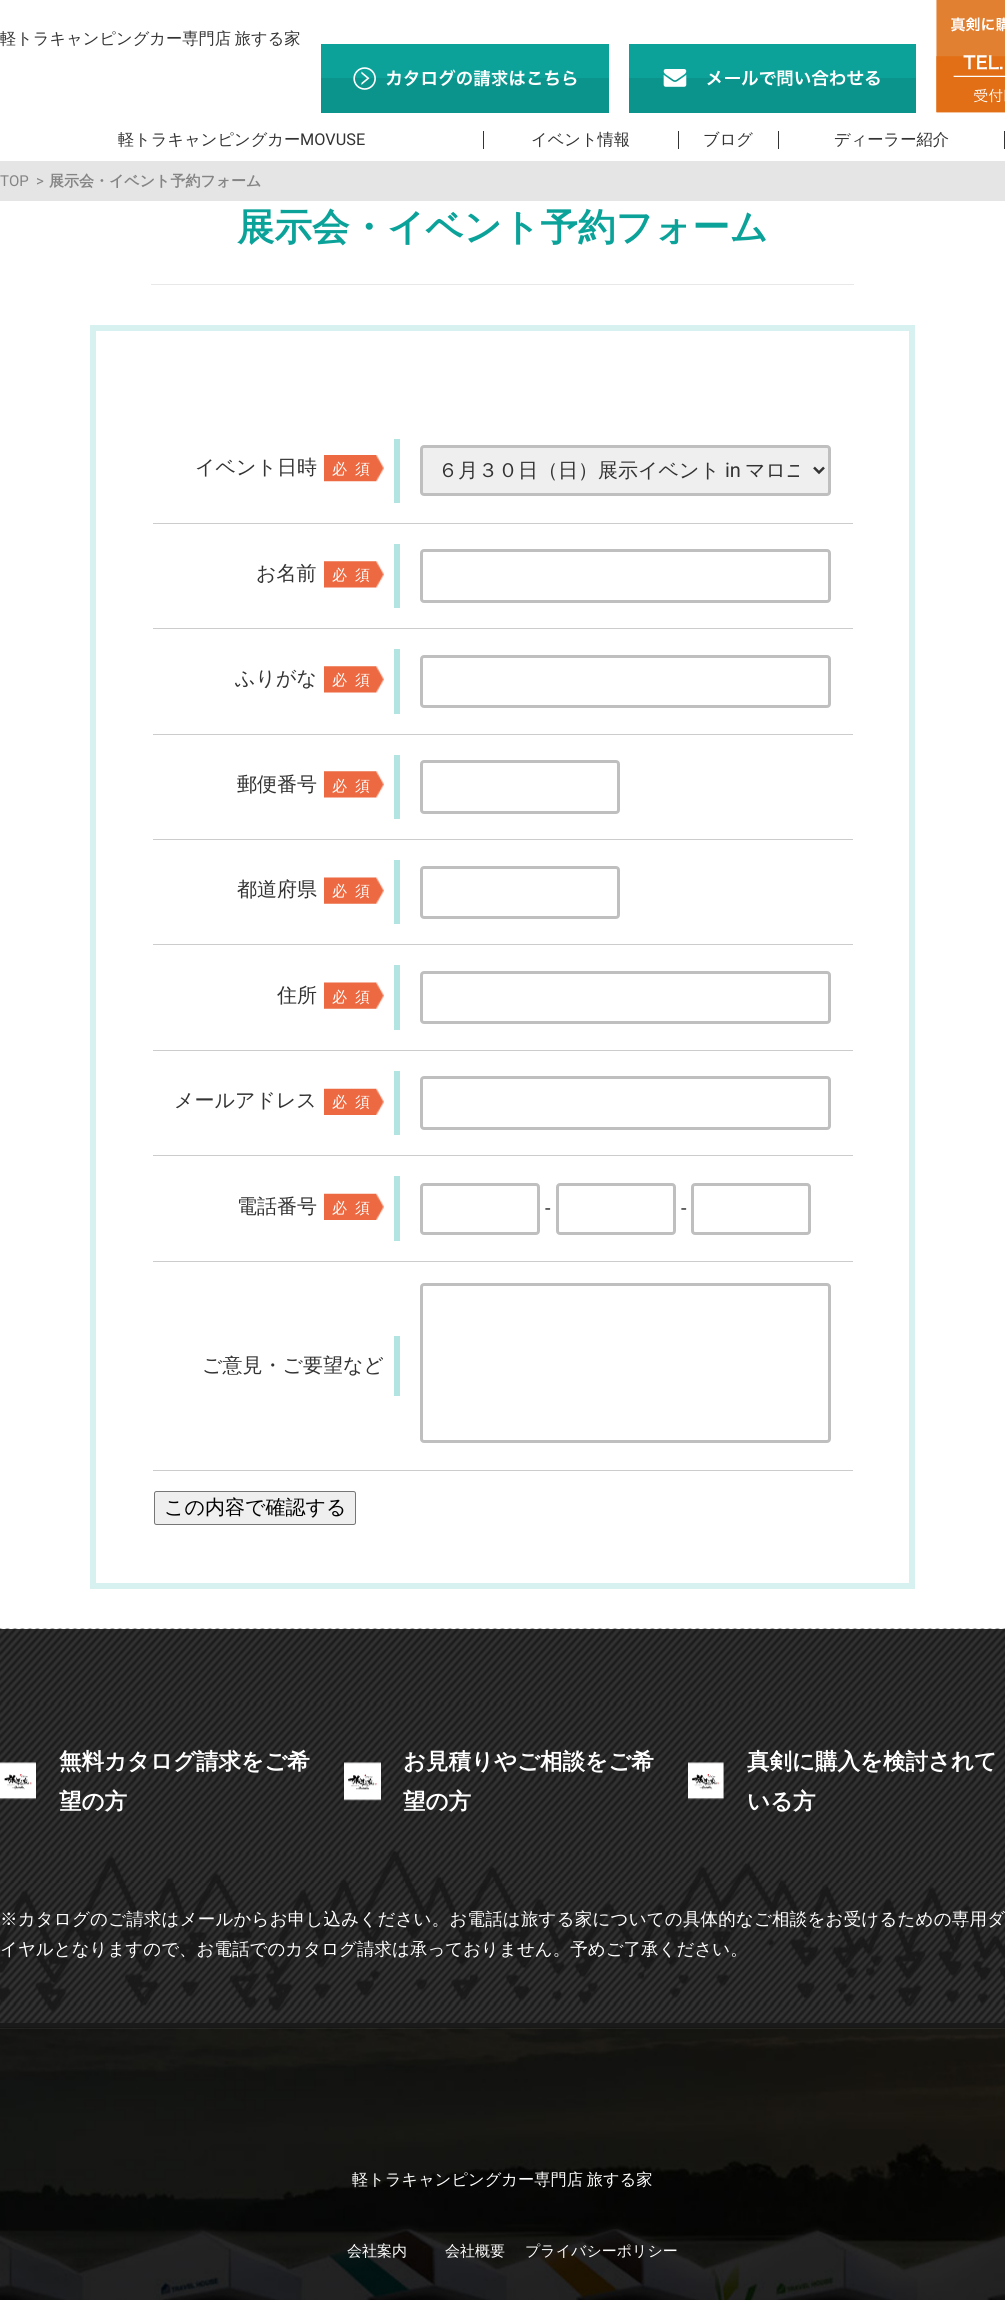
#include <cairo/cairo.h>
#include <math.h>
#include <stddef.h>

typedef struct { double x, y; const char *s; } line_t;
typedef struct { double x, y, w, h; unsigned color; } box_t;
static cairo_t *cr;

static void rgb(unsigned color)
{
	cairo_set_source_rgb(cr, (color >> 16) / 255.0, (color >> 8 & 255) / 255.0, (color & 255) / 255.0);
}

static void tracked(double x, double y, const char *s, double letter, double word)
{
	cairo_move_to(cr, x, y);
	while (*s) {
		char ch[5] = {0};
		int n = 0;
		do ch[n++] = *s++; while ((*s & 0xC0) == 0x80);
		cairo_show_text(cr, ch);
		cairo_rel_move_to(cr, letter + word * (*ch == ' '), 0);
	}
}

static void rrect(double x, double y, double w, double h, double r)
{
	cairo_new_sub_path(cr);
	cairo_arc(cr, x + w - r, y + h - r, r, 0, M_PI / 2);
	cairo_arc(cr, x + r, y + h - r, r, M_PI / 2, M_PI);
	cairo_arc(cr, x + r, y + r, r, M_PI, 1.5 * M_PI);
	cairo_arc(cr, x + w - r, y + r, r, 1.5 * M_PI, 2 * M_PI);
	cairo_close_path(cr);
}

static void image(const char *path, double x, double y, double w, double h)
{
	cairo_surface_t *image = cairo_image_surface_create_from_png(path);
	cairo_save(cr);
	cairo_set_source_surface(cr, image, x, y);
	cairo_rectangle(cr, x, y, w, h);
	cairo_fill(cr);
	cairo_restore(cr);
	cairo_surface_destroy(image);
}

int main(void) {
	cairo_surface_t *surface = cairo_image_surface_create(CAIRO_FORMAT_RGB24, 1005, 2300);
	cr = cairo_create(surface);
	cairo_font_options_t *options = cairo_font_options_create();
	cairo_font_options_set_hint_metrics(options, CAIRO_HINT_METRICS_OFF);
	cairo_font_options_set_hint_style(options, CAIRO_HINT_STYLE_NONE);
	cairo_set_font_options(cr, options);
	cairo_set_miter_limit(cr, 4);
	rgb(0xffffff);
	cairo_paint(cr);
	image("img/1.png", 321, 44, 288, 69);
	image("img/2.png", 629, 44, 287, 69);
	image("img/3.png", 936, 0, 69, 113);
	{
		static const box_t items[] = {
			{483, 131, 1, 18, 0x333333},
			{678, 131, 1, 18, 0x333333},
			{778, 131, 1, 18, 0x333333},
			{1004, 131, 1, 18, 0x333333},
			{0, 161, 1005, 40, 0xe5e5e5},
			{151, 284, 703, 1, 0xe9e8e8},
		};
		for (size_t i = 0; i < sizeof items / sizeof *items; i++) {
			rgb(items[i].color);
			cairo_rectangle(cr, items[i].x, items[i].y, items[i].w, items[i].h);
			cairo_fill(cr);
		}
	}
	cairo_rectangle(cr, 93, 328, 819, 1258);
	rgb(0xd6f1f0);
	cairo_set_line_width(cr, 6);
	cairo_stroke(cr);
	rgb(0xb2e5e2);
	cairo_rectangle(cr, 394, 439, 6, 64);
	cairo_fill(cr);
	image("img/4.png", 324, 455, 60, 27);
	rgb(0xcccccc);
	cairo_rectangle(cr, 153, 523, 700, 1);
	cairo_fill(cr);
	rgb(0xefefef);
	rrect(421.5, 446.5, 408, 48, 2.5);
	cairo_fill_preserve(cr);
	rgb(0xbfbfbf);
	cairo_set_line_width(cr, 3);
	cairo_stroke(cr);
	cairo_new_path(cr);
	cairo_move_to(cr, 814, 467.5);
	cairo_line_to(cr, 819, 472.5);
	cairo_line_to(cr, 824, 467.5);
	rgb(0x333333);
	cairo_set_line_width(cr, 2.5);
	cairo_stroke(cr);
	rgb(0xcccccc);
	cairo_rectangle(cr, 153, 628, 700, 1);
	cairo_fill(cr);
	rrect(421.5, 550.5, 408, 51, 2.5);
	rgb(0xbfbfbf);
	cairo_set_line_width(cr, 3);
	cairo_stroke(cr);
	rgb(0xb2e5e2);
	cairo_rectangle(cr, 394, 544, 6, 64);
	cairo_fill(cr);
	image("img/5.png", 324, 561, 60, 27);
	rgb(0xcccccc);
	cairo_rectangle(cr, 153, 734, 700, 1);
	cairo_fill(cr);
	rrect(421.5, 656.5, 408, 50, 2.5);
	rgb(0xbfbfbf);
	cairo_stroke(cr);
	rgb(0xb2e5e2);
	cairo_rectangle(cr, 394, 649, 6, 65);
	cairo_fill(cr);
	image("img/5.png", 324, 666, 60, 27);
	rgb(0xcccccc);
	cairo_rectangle(cr, 153, 839, 700, 1);
	cairo_fill(cr);
	rrect(421.5, 761.5, 197, 51, 2.5);
	rgb(0xbfbfbf);
	cairo_stroke(cr);
	rgb(0xb2e5e2);
	cairo_rectangle(cr, 394, 755, 6, 64);
	cairo_fill(cr);
	image("img/5.png", 324, 771, 60, 27);
	rgb(0xcccccc);
	cairo_rectangle(cr, 153, 944, 700, 1);
	cairo_fill(cr);
	rrect(421.5, 867.5, 197, 50, 2.5);
	rgb(0xbfbfbf);
	cairo_stroke(cr);
	rgb(0xb2e5e2);
	cairo_rectangle(cr, 394, 860, 6, 64);
	cairo_fill(cr);
	image("img/6.png", 324, 877, 60, 27);
	rgb(0xcccccc);
	cairo_rectangle(cr, 153, 1050, 700, 1);
	cairo_fill(cr);
	rrect(421.5, 972.5, 408, 50, 2.5);
	rgb(0xbfbfbf);
	cairo_stroke(cr);
	rgb(0xb2e5e2);
	cairo_rectangle(cr, 394, 965, 6, 65);
	cairo_fill(cr);
	image("img/6.png", 324, 982, 60, 27);
	rgb(0xcccccc);
	cairo_rectangle(cr, 153, 1155, 700, 1);
	cairo_fill(cr);
	rrect(421.5, 1077.5, 408, 51, 2.5);
	rgb(0xbfbfbf);
	cairo_stroke(cr);
	rgb(0xb2e5e2);
	cairo_rectangle(cr, 394, 1071, 6, 64);
	cairo_fill(cr);
	image("img/7.png", 324, 1088, 60, 27);
	cairo_rectangle(cr, 394, 1176, 6, 65);
	cairo_fill(cr);
	image("img/7.png", 324, 1193, 60, 27);
	rgb(0xcccccc);
	cairo_rectangle(cr, 153, 1261, 700, 1);
	cairo_fill(cr);
	rrect(421.5, 1184.5, 117, 49, 2.5);
	rgb(0xbfbfbf);
	cairo_stroke(cr);
	rrect(557.5, 1184.5, 117, 49, 2.5);
	cairo_stroke(cr);
	rrect(692.5, 1184.5, 117, 49, 2.5);
	cairo_stroke(cr);
	rgb(0xcccccc);
	cairo_rectangle(cr, 153, 1470, 700, 1);
	cairo_fill(cr);
	rrect(421.5, 1284.5, 408, 157, 2.5);
	rgb(0xbfbfbf);
	cairo_stroke(cr);
	rgb(0xb2e5e2);
	cairo_rectangle(cr, 394, 1336, 6, 60);
	cairo_fill(cr);
	rgb(0xefefef);
	rrect(154.5, 1491.5, 201, 33, 2);
	cairo_fill_preserve(cr);
	rgb(0x767676);
	cairo_set_line_width(cr, 1);
	cairo_stroke(cr);
	rgb(0x333333);
	cairo_rectangle(cr, 0, 1629, 1005, 394);
	cairo_fill(cr);
	image("img/8.png", 0, 1628, 1005, 395);
	rgb(0x1a1a1a);
	cairo_rectangle(cr, 0, 2023, 1005, 5);
	cairo_fill(cr);
	image("img/9.png", 0, 1762, 36, 38);
	image("img/10.png", 344, 1762, 37, 39);
	image("img/11.png", 688, 1762, 36, 38);
	image("img/12.png", 0, 2027, 1005, 273);
	cairo_select_font_face(cr, "WenQuanYi Zen Hei Medium", CAIRO_FONT_SLANT_NORMAL, CAIRO_FONT_WEIGHT_NORMAL);
	cairo_set_font_size(cr, 16.25);
	rgb(0x333333);
	tracked(0, 44, "軽トラキャンピングカー専門店 旅する家", 0, -1);
	cairo_move_to(cr, 118, 145);
	cairo_show_text(cr, "軽トラキャンピングカー");
	cairo_select_font_face(cr, "Roboto", CAIRO_FONT_SLANT_NORMAL, CAIRO_FONT_WEIGHT_NORMAL);
	cairo_move_to(cr, 300, 145);
	cairo_show_text(cr, "MOVUSE");
	cairo_select_font_face(cr, "WenQuanYi Zen Hei Medium", CAIRO_FONT_SLANT_NORMAL, CAIRO_FONT_WEIGHT_NORMAL);
	{
		static const line_t items[] = {
			{531, 145, "イベント情報"},
			{703, 145, "ブログ"},
			{834, 145, "ディーラー紹介"},
		};
		for (size_t i = 0; i < sizeof items / sizeof *items; i++) {
			cairo_move_to(cr, items[i].x, items[i].y);
			cairo_show_text(cr, items[i].s);
		}
	}
	cairo_select_font_face(cr, "Roboto", CAIRO_FONT_SLANT_NORMAL, CAIRO_FONT_WEIGHT_NORMAL);
	cairo_set_font_size(cr, 15);
	rgb(0x858585);
	cairo_move_to(cr, 0, 186);
	cairo_show_text(cr, "TOP");
	cairo_move_to(cr, 36, 186);
	cairo_show_text(cr, ">");
	cairo_select_font_face(cr, "WenQuanYi Zen Hei", CAIRO_FONT_SLANT_NORMAL, CAIRO_FONT_WEIGHT_BOLD);
	cairo_move_to(cr, 49, 186);
	cairo_show_text(cr, "展示会・イベント予約フォーム");
	cairo_set_font_size(cr, 37.5);
	rgb(0x0ba29a);
	cairo_move_to(cr, 237, 240);
	cairo_show_text(cr, "展示会・イベント予約フォーム");
	cairo_select_font_face(cr, "WenQuanYi Zen Hei Medium", CAIRO_FONT_SLANT_NORMAL, CAIRO_FONT_WEIGHT_NORMAL);
	cairo_set_font_size(cr, 20);
	rgb(0x333333);
	cairo_move_to(cr, 195, 474);
	cairo_show_text(cr, "イベント日時");
	cairo_set_font_size(cr, 15);
	rgb(0xffffff);
	tracked(332, 474, "必須", 8, 0);
	cairo_set_font_size(cr, 20);
	rgb(0x333333);
	cairo_move_to(cr, 438, 477);
	cairo_show_text(cr, "６月３０日（日）展示イベント");
	cairo_select_font_face(cr, "Roboto", CAIRO_FONT_SLANT_NORMAL, CAIRO_FONT_WEIGHT_NORMAL);
	cairo_move_to(cr, 725, 477);
	cairo_show_text(cr, "in");
	cairo_save(cr);
	cairo_rectangle(cr, 438, 458, 361, 26);
	cairo_clip(cr);
	cairo_select_font_face(cr, "WenQuanYi Zen Hei Medium", CAIRO_FONT_SLANT_NORMAL, CAIRO_FONT_WEIGHT_NORMAL);
	cairo_move_to(cr, 745, 477);
	cairo_show_text(cr, "マロニ");
	cairo_restore(cr);
	cairo_select_font_face(cr, "WenQuanYi Zen Hei Medium", CAIRO_FONT_SLANT_NORMAL, CAIRO_FONT_WEIGHT_NORMAL);
	cairo_move_to(cr, 256, 580);
	cairo_show_text(cr, "お名前");
	cairo_set_font_size(cr, 15);
	rgb(0xffffff);
	tracked(332, 580, "必須", 8, 0);
	cairo_set_font_size(cr, 20);
	rgb(0x333333);
	cairo_move_to(cr, 235, 685);
	cairo_show_text(cr, "ふりがな");
	cairo_set_font_size(cr, 15);
	rgb(0xffffff);
	tracked(332, 685, "必須", 8, 0);
	cairo_set_font_size(cr, 20);
	rgb(0x333333);
	cairo_move_to(cr, 237, 791);
	cairo_show_text(cr, "郵便番号");
	cairo_set_font_size(cr, 15);
	rgb(0xffffff);
	tracked(332, 791, "必須", 8, 0);
	cairo_set_font_size(cr, 20);
	rgb(0x333333);
	cairo_move_to(cr, 237, 896);
	cairo_show_text(cr, "都道府県");
	cairo_set_font_size(cr, 15);
	rgb(0xffffff);
	tracked(332, 896, "必須", 8, 0);
	cairo_set_font_size(cr, 20);
	rgb(0x333333);
	cairo_move_to(cr, 277, 1002);
	cairo_show_text(cr, "住所");
	cairo_set_font_size(cr, 15);
	rgb(0xffffff);
	tracked(332, 1002, "必須", 8, 0);
	cairo_set_font_size(cr, 20);
	rgb(0x333333);
	cairo_move_to(cr, 174, 1107);
	cairo_show_text(cr, "メールアドレス");
	cairo_set_font_size(cr, 15);
	rgb(0xffffff);
	tracked(332, 1107, "必須", 8, 0);
	cairo_set_font_size(cr, 20);
	rgb(0x333333);
	cairo_move_to(cr, 237, 1213);
	cairo_show_text(cr, "電話番号");
	cairo_set_font_size(cr, 15);
	rgb(0xffffff);
	tracked(332, 1213, "必須", 8, 0);
	cairo_select_font_face(cr, "Roboto", CAIRO_FONT_SLANT_NORMAL, CAIRO_FONT_WEIGHT_NORMAL);
	cairo_set_font_size(cr, 20);
	rgb(0x333333);
	cairo_move_to(cr, 545, 1215);
	cairo_show_text(cr, "-");
	cairo_move_to(cr, 681, 1215);
	cairo_show_text(cr, "-");
	cairo_select_font_face(cr, "WenQuanYi Zen Hei Medium", CAIRO_FONT_SLANT_NORMAL, CAIRO_FONT_WEIGHT_NORMAL);
	cairo_move_to(cr, 202, 1372);
	cairo_show_text(cr, "ご意見・ご要望など");
	rgb(0x000000);
	cairo_move_to(cr, 164, 1514);
	cairo_show_text(cr, "この内容で確認する");
	cairo_select_font_face(cr, "WenQuanYi Zen Hei", CAIRO_FONT_SLANT_NORMAL, CAIRO_FONT_WEIGHT_BOLD);
	cairo_set_font_size(cr, 22.5);
	rgb(0xffffff);
	{
		static const line_t items[] = {
			{59, 1769, "無料カタログ請求をご希"},
			{59, 1809, "望の方"},
			{403, 1769, "お見積りやご相談をご希"},
			{403, 1809, "望の方"},
			{747, 1769, "真剣に購入を検討されて"},
			{747, 1809, "いる方"},
		};
		for (size_t i = 0; i < sizeof items / sizeof *items; i++) {
			cairo_move_to(cr, items[i].x, items[i].y);
			cairo_show_text(cr, items[i].s);
		}
	}
	cairo_select_font_face(cr, "WenQuanYi Zen Hei Medium", CAIRO_FONT_SLANT_NORMAL, CAIRO_FONT_WEIGHT_NORMAL);
	cairo_set_font_size(cr, 17.5);
	tracked(0, 1925, "※カタログのご請求はメールからお申し込みください。お電話は旅する家についての具体的なご相談をお受けるための専用ダ", 0.18, 0);
	cairo_move_to(cr, 0, 1955);
	cairo_show_text(cr, "イヤルとなりますので、お電話でのカタログ請求は承っておりません。予めご了承ください。");
	cairo_set_font_size(cr, 16.25);
	tracked(352, 2185, "軽トラキャンピングカー専門店 旅する家", 0, -1);
	cairo_set_font_size(cr, 15);
	{
		static const line_t items[] = {
			{347, 2256, "会社案内"},
			{445, 2256, "会社概要"},
			{525, 2256, "プライバシーポリシー"},
		};
		for (size_t i = 0; i < sizeof items / sizeof *items; i++) {
			cairo_move_to(cr, items[i].x, items[i].y);
			cairo_show_text(cr, items[i].s);
		}
	}
	cairo_surface_write_to_png(surface, "page.png");
	cairo_font_options_destroy(options);
	cairo_destroy(cr);
	cairo_surface_destroy(surface);
	return 0;
}
